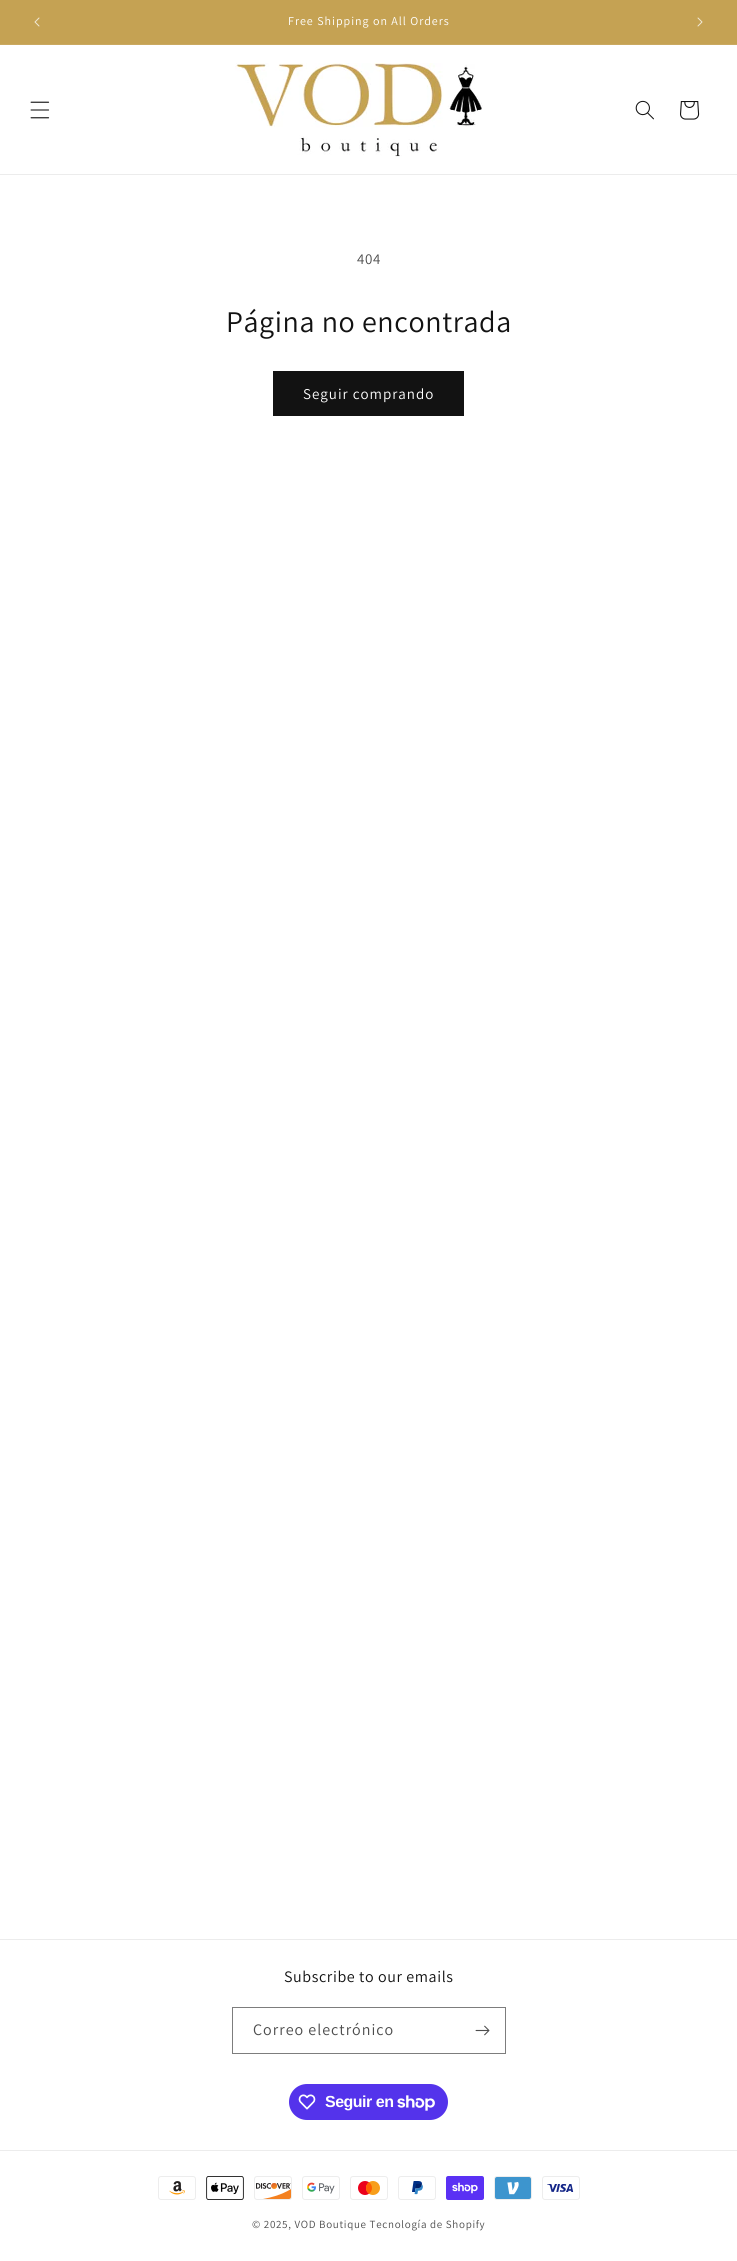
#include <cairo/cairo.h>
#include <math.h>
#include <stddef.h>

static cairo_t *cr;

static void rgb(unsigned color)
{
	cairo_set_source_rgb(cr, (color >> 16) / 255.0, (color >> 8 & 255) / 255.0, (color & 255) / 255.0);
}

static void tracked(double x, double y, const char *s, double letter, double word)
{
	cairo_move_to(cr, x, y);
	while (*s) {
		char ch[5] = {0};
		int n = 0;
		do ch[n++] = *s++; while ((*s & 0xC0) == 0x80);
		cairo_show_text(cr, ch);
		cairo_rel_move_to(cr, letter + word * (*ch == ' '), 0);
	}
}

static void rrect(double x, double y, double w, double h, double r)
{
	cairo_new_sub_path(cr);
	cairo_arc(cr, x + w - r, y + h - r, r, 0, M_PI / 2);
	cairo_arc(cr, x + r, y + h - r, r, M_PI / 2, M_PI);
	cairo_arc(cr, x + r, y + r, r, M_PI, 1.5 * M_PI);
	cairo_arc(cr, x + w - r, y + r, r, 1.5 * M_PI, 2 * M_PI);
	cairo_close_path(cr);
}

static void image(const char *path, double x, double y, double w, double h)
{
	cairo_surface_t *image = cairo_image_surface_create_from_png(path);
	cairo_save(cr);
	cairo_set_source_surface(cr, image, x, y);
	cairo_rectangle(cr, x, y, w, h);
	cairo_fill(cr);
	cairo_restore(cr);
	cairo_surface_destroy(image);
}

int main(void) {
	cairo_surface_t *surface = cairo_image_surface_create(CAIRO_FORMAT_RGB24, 737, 2261);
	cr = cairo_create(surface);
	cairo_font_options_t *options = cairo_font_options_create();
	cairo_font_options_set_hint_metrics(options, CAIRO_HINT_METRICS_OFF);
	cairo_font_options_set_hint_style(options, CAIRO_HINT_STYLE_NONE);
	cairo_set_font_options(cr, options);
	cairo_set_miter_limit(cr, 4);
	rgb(0xffffff);
	cairo_paint(cr);
	rgb(0xc5a253);
	cairo_rectangle(cr, 0, 0, 737, 44);
	cairo_fill(cr);
	rgb(0xcaa961);
	cairo_rectangle(cr, 0, 44, 737, 1);
	cairo_fill(cr);
	image("img/1.png", 34, 17, 6, 10);
	image("img/2.png", 697, 17, 6, 10);
	rgb(0xececec);
	cairo_rectangle(cr, 0, 174, 737, 1);
	cairo_fill(cr);
	image("img/3.png", 30, 101, 20, 18);
	image("img/4.png", 235, 63, 248, 94);
	image("img/5.png", 635, 100, 19, 20);
	image("img/6.png", 680, 101, 20, 19);
	rgb(0x121212);
	cairo_rectangle(cr, 273, 371, 191, 45);
	cairo_fill(cr);
	rgb(0xececec);
	cairo_rectangle(cr, 0, 1939, 737, 1);
	cairo_fill(cr);
	cairo_rectangle(cr, 232.5, 2007.5, 273, 46);
	rgb(0x7d7d7d);
	cairo_set_line_width(cr, 1);
	cairo_stroke(cr);
	image("img/7.png", 475, 2025, 15, 11);
	rgb(0x5433eb);
	rrect(289, 2084, 159, 36, 18);
	cairo_fill(cr);
	image("img/8.png", 298, 2094, 18, 16);
	image("img/9.png", 397, 2095, 38, 16);
	rgb(0xececec);
	cairo_rectangle(cr, 0, 2150, 737, 1);
	cairo_fill(cr);
	image("img/10.png", 158, 2176, 38, 24);
	image("img/11.png", 206, 2176, 38, 24);
	image("img/12.png", 254, 2176, 38, 24);
	image("img/13.png", 302, 2176, 38, 24);
	image("img/14.png", 350, 2176, 38, 24);
	image("img/15.png", 398, 2176, 38, 24);
	image("img/16.png", 446, 2176, 38, 24);
	image("img/17.png", 494, 2176, 38, 24);
	image("img/18.png", 542, 2176, 38, 24);
	cairo_select_font_face(cr, "Assistant", CAIRO_FONT_SLANT_NORMAL, CAIRO_FONT_WEIGHT_NORMAL);
	cairo_set_font_size(cr, 12);
	rgb(0xffffff);
	tracked(288, 25, "Free Shipping on All Orders", 1, 0);
	cairo_set_font_size(cr, 15);
	rgb(0x4d4d4d);
	tracked(357, 264, "404", 0.6, 0);
	cairo_set_font_size(cr, 30);
	rgb(0x121212);
	tracked(226, 332, "Página no encontrada", 0.6, 0);
	cairo_set_font_size(cr, 15);
	rgb(0xffffff);
	tracked(303, 399, "Seguir comprando", 1, 0);
	cairo_set_font_size(cr, 16);
	rgb(0x121212);
	tracked(284, 1982, "Subscribe to our emails", 0.6, 0);
	rgb(0x4d4d4d);
	tracked(253, 2035, "Correo electrónico", 1, 0);
	cairo_select_font_face(cr, "Liberation Sans", CAIRO_FONT_SLANT_NORMAL, CAIRO_FONT_WEIGHT_BOLD);
	rgb(0xffffff);
	tracked(325, 2107, "Seguir en", -0.5, 0);
	cairo_select_font_face(cr, "Assistant", CAIRO_FONT_SLANT_NORMAL, CAIRO_FONT_WEIGHT_NORMAL);
	cairo_set_font_size(cr, 11);
	rgb(0x4d4d4d);
	tracked(252, 2228, "© 2025, VOD Boutique Tecnología de Shopify", 0.7, 0);
	cairo_surface_write_to_png(surface, "page.png");
	cairo_font_options_destroy(options);
	cairo_destroy(cr);
	cairo_surface_destroy(surface);
	return 0;
}
